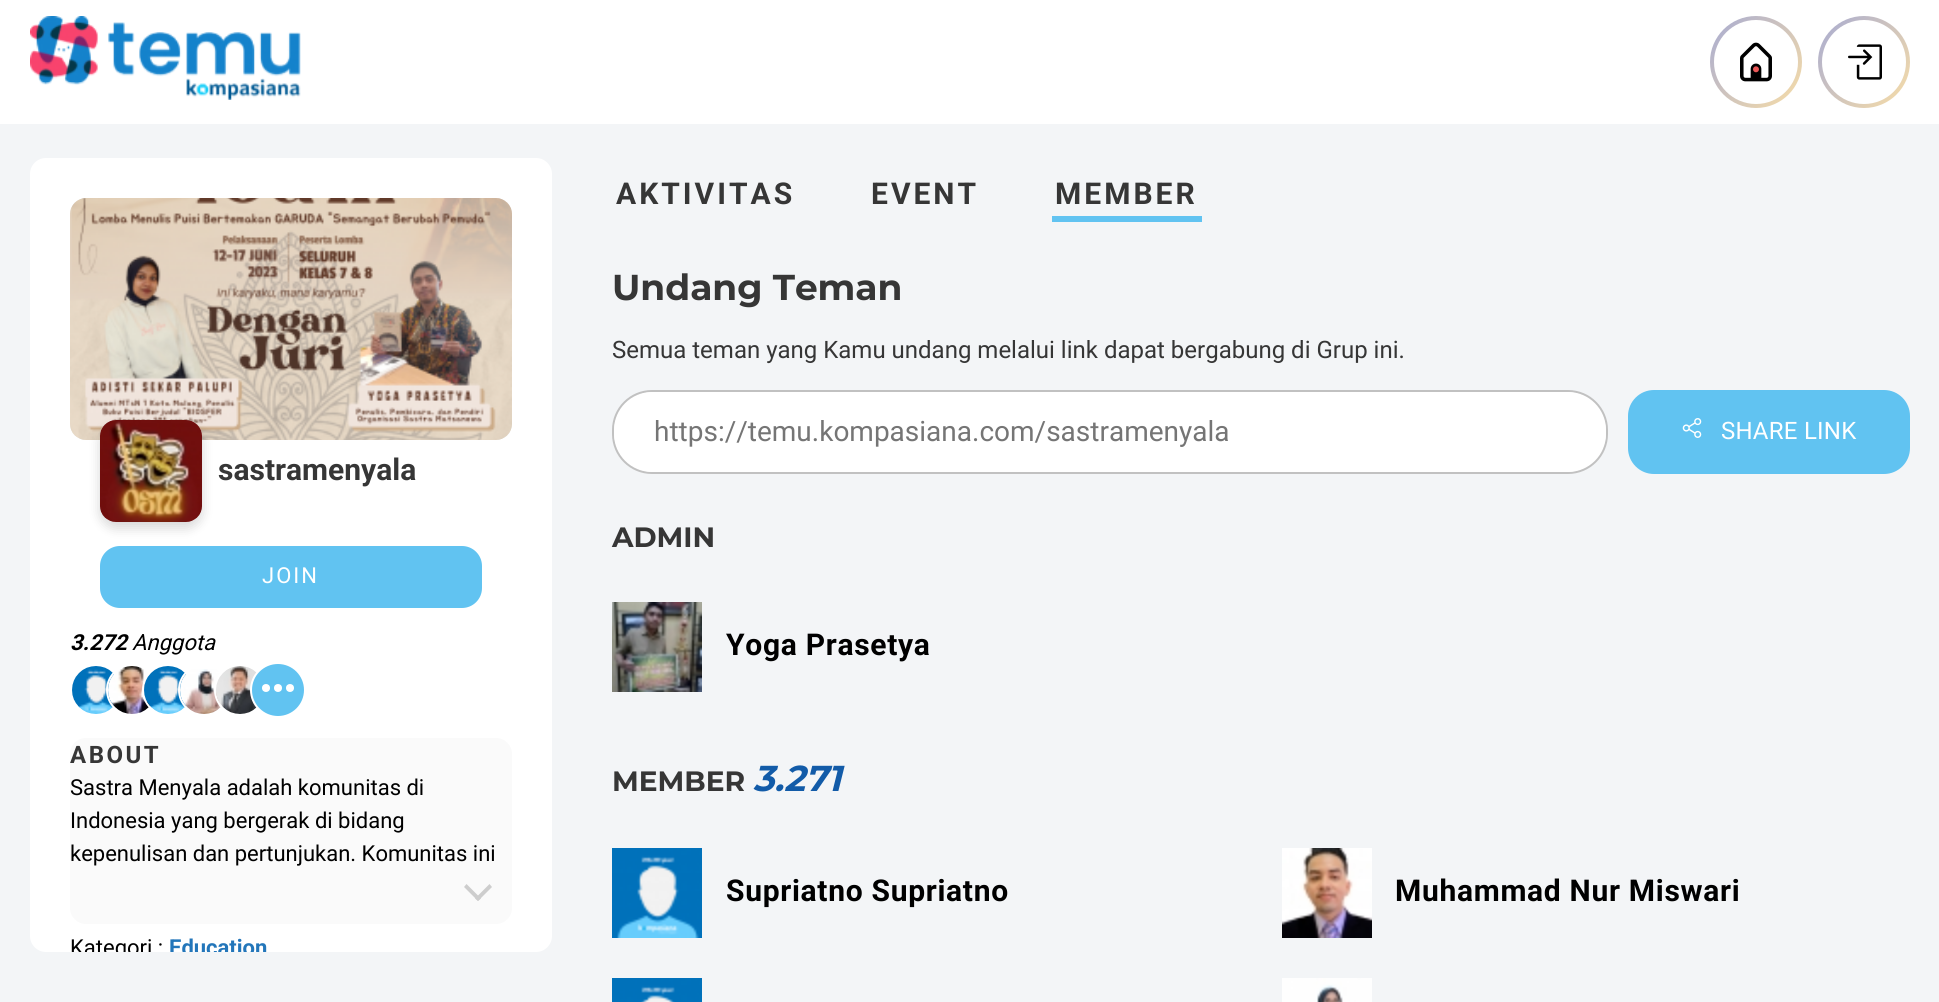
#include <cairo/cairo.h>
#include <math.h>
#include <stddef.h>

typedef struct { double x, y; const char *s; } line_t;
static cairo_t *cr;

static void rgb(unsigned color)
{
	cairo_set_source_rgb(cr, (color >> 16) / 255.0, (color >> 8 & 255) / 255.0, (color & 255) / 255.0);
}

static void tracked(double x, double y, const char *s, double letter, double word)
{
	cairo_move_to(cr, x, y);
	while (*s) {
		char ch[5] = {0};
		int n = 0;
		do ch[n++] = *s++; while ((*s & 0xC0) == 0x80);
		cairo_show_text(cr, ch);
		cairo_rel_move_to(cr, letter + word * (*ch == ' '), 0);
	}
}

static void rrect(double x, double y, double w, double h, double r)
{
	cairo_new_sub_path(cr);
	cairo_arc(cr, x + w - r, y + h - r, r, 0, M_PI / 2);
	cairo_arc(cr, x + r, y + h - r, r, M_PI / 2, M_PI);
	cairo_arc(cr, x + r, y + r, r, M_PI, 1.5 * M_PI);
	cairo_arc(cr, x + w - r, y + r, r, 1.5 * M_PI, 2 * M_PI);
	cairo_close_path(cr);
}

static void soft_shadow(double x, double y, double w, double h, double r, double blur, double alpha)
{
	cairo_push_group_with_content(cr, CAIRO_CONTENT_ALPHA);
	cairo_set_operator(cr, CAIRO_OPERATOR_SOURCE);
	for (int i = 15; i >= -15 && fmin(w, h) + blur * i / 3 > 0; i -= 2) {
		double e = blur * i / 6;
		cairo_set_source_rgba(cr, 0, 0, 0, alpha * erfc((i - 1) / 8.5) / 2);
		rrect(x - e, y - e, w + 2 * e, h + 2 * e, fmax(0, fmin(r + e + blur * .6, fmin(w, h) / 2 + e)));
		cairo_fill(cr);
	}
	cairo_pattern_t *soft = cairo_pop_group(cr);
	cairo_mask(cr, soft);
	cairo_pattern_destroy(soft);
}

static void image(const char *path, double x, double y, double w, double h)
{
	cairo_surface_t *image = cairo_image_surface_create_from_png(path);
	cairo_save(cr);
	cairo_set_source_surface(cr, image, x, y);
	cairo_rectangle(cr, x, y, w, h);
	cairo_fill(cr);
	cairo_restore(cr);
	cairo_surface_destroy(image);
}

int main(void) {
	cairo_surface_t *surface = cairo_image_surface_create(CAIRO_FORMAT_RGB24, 1939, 1002);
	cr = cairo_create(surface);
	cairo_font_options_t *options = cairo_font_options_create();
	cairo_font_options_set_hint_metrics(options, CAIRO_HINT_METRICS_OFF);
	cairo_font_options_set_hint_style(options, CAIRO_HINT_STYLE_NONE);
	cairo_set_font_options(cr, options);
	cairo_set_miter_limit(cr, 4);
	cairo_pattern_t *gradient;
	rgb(0xf3f5f7);
	cairo_paint(cr);
	rgb(0xffffff);
	cairo_rectangle(cr, 0, 0, 1939, 124);
	cairo_fill(cr);
	image("img/1.png", 30, 16, 271, 84);
	gradient = cairo_pattern_create_linear(1806, 104, 1706, 20);
	cairo_pattern_add_color_stop_rgba(gradient, 0, 0.976, 0.871, 0.655, 1);
	cairo_pattern_add_color_stop_rgba(gradient, 1, 0.655, 0.671, 0.824, 1);
	cairo_set_source(cr, gradient);
	cairo_pattern_destroy(gradient);
	cairo_arc(cr, 1756, 62, 46, 0, 2 * M_PI);
	cairo_fill(cr);
	rgb(0xffffff);
	cairo_arc(cr, 1756, 62, 42, 0, 2 * M_PI);
	cairo_fill(cr);
	image("img/2.png", 1740, 42, 32, 40);
	gradient = cairo_pattern_create_linear(1914, 104, 1814, 20);
	cairo_pattern_add_color_stop_rgba(gradient, 0, 0.976, 0.871, 0.655, 1);
	cairo_pattern_add_color_stop_rgba(gradient, 1, 0.655, 0.671, 0.824, 1);
	cairo_set_source(cr, gradient);
	cairo_pattern_destroy(gradient);
	cairo_arc(cr, 1864, 62, 46, 0, 2 * M_PI);
	cairo_fill(cr);
	rgb(0xffffff);
	cairo_arc(cr, 1864, 62, 42, 0, 2 * M_PI);
	cairo_fill(cr);
	image("img/3.png", 1848, 44, 34, 36);
	rrect(30, 158, 522, 794, 16);
	cairo_fill(cr);
	rgb(0xf3f5f7);
	rrect(70, 198, 442, 242, 16);
	cairo_fill(cr);
	image("img/4.png", 70, 198, 442, 242);
	rgb(0x61c3f1);
	rrect(101, 547, 380, 60, 19);
	cairo_fill_preserve(cr);
	cairo_stroke(cr);
	rgb(0x000000);
	soft_shadow(100, 426, 102, 102, 16, 6, 0.16);
	rgb(0xf3f5f7);
	rrect(100, 420, 102, 102, 16);
	cairo_fill(cr);
	image("img/5.png", 100, 420, 102, 102);
	image("img/6.png", 72, 666, 43, 48);
	cairo_arc(cr, 132, 690, 25, 0, 2 * M_PI);
	rgb(0xffffff);
	cairo_stroke(cr);
	image("img/7.png", 108, 666, 43, 48);
	cairo_arc(cr, 168, 690, 25, 0, 2 * M_PI);
	cairo_stroke(cr);
	image("img/8.png", 144, 666, 43, 48);
	cairo_arc(cr, 204, 690, 25, 0, 2 * M_PI);
	cairo_stroke(cr);
	image("img/9.png", 180, 669, 42, 45);
	cairo_arc(cr, 240, 690, 25, 0, 2 * M_PI);
	cairo_stroke(cr);
	image("img/10.png", 216, 666, 41, 48);
	rgb(0x61c3f1);
	cairo_arc(cr, 278, 690, 27, 0, 2 * M_PI);
	cairo_fill_preserve(cr);
	rgb(0xffffff);
	cairo_stroke(cr);
	cairo_arc(cr, 278, 688, 4, 0, 2 * M_PI);
	cairo_fill(cr);
	cairo_arc(cr, 266, 688, 4, 0, 2 * M_PI);
	cairo_fill(cr);
	cairo_arc(cr, 290, 688, 4, 0, 2 * M_PI);
	cairo_fill(cr);
	rgb(0xfafafa);
	rrect(70, 738, 442, 186, 16);
	cairo_fill(cr);
	rgb(0xcdcdcd);
	cairo_new_path(cr);
	cairo_move_to(cr, 489.5, 884);
	cairo_line_to(cr, 492, 887);
	cairo_line_to(cr, 478, 901);
	cairo_line_to(cr, 475, 898.5);
	cairo_close_path(cr);
	cairo_fill(cr);
	cairo_new_path(cr);
	cairo_move_to(cr, 466.5, 884);
	cairo_line_to(cr, 481, 898.5);
	cairo_line_to(cr, 478, 901);
	cairo_line_to(cr, 464, 887);
	cairo_close_path(cr);
	cairo_fill(cr);
	rgb(0x61c3f1);
	cairo_rectangle(cr, 1052, 216, 150, 6);
	cairo_fill(cr);
	rgb(0xffffff);
	rrect(613, 391, 994, 82, 39);
	cairo_fill_preserve(cr);
	rgb(0xc1c1c1);
	cairo_stroke(cr);
	rgb(0xffffff);
	rrect(614, 392, 992, 80, 40);
	cairo_fill(cr);
	rgb(0x61c3f1);
	rrect(1628, 390, 282, 84, 26);
	cairo_fill(cr);
	image("img/11.png", 1682, 418, 20, 20);
	image("img/12.png", 612, 602, 90, 90);
	image("img/13.png", 612, 848, 90, 90);
	image("img/14.png", 1282, 848, 90, 90);
	image("img/15.png", 612, 978, 90, 24);
	image("img/16.png", 1282, 978, 90, 24);
	cairo_select_font_face(cr, "Roboto", CAIRO_FONT_SLANT_NORMAL, CAIRO_FONT_WEIGHT_BOLD);
	cairo_set_font_size(cr, 30);
	rgb(0x363636);
	cairo_move_to(cr, 218, 480);
	cairo_show_text(cr, "sastramenyala");
	cairo_select_font_face(cr, "Roboto", CAIRO_FONT_SLANT_NORMAL, CAIRO_FONT_WEIGHT_NORMAL);
	cairo_set_font_size(cr, 22);
	rgb(0xffffff);
	tracked(262, 583, "JOIN", 2, 0);
	cairo_select_font_face(cr, "Roboto", CAIRO_FONT_SLANT_ITALIC, CAIRO_FONT_WEIGHT_BOLD);
	rgb(0x000000);
	cairo_move_to(cr, 70, 650);
	cairo_show_text(cr, "3.272");
	cairo_select_font_face(cr, "Roboto", CAIRO_FONT_SLANT_ITALIC, CAIRO_FONT_WEIGHT_NORMAL);
	cairo_move_to(cr, 132, 650);
	cairo_show_text(cr, "Anggota");
	cairo_select_font_face(cr, "Roboto", CAIRO_FONT_SLANT_NORMAL, CAIRO_FONT_WEIGHT_BOLD);
	cairo_set_font_size(cr, 24);
	rgb(0x363636);
	tracked(70, 763, "ABOUT", 2.5, 0);
	cairo_select_font_face(cr, "Roboto", CAIRO_FONT_SLANT_NORMAL, CAIRO_FONT_WEIGHT_NORMAL);
	cairo_set_font_size(cr, 22);
	rgb(0x000000);
	{
		static const line_t items[] = {
			{70, 795, "Sastra Menyala adalah komunitas di"},
			{70, 828, "Indonesia yang bergerak di bidang"},
			{70, 861, "kepenulisan dan pertunjukan. Komunitas ini"},
		};
		for (size_t i = 0; i < sizeof items / sizeof *items; i++) {
			cairo_move_to(cr, items[i].x, items[i].y);
			cairo_show_text(cr, items[i].s);
		}
	}
	cairo_save(cr);
	cairo_rectangle(cr, 30, 158, 522, 794);
	cairo_clip(cr);
	cairo_move_to(cr, 70, 955);
	cairo_show_text(cr, "Kategori :");
	cairo_select_font_face(cr, "Roboto", CAIRO_FONT_SLANT_NORMAL, CAIRO_FONT_WEIGHT_BOLD);
	rgb(0x2376ba);
	cairo_move_to(cr, 169, 955);
	cairo_show_text(cr, "Education");
	cairo_restore(cr);
	cairo_select_font_face(cr, "Roboto", CAIRO_FONT_SLANT_NORMAL, CAIRO_FONT_WEIGHT_BOLD);
	cairo_set_font_size(cr, 30);
	rgb(0x363636);
	{
		static const line_t items[] = {
			{616, 204, "AKTIVITAS"},
			{871, 204, "EVENT"},
			{1055, 204, "MEMBER"},
		};
		for (size_t i = 0; i < sizeof items / sizeof *items; i++) {
			tracked(items[i].x, items[i].y, items[i].s, 3, 0);
		}
	}
	cairo_select_font_face(cr, "Montserrat", CAIRO_FONT_SLANT_NORMAL, CAIRO_FONT_WEIGHT_BOLD);
	cairo_set_font_size(cr, 36);
	cairo_move_to(cr, 612, 300);
	cairo_show_text(cr, "Undang Teman");
	cairo_select_font_face(cr, "Roboto", CAIRO_FONT_SLANT_NORMAL, CAIRO_FONT_WEIGHT_NORMAL);
	cairo_set_font_size(cr, 24);
	cairo_move_to(cr, 612, 358);
	cairo_show_text(cr, "Semua teman yang Kamu undang melalui link dapat bergabung di Grup ini.");
	cairo_set_font_size(cr, 28);
	rgb(0x757575);
	cairo_move_to(cr, 654, 441);
	cairo_show_text(cr, "https://temu.kompasiana.com/sastramenyala");
	cairo_set_font_size(cr, 24);
	rgb(0xffffff);
	tracked(1721, 439, "SHARE LINK", 0.25, 0);
	cairo_select_font_face(cr, "Montserrat", CAIRO_FONT_SLANT_NORMAL, CAIRO_FONT_WEIGHT_BOLD);
	cairo_set_font_size(cr, 28);
	rgb(0x363636);
	cairo_move_to(cr, 612, 547);
	cairo_show_text(cr, "ADMIN");
	cairo_select_font_face(cr, "Roboto", CAIRO_FONT_SLANT_NORMAL, CAIRO_FONT_WEIGHT_BOLD);
	cairo_set_font_size(cr, 30);
	rgb(0x000000);
	tracked(726, 655, "Yoga Prasetya", 0.7, 0);
	cairo_select_font_face(cr, "Montserrat", CAIRO_FONT_SLANT_NORMAL, CAIRO_FONT_WEIGHT_BOLD);
	cairo_set_font_size(cr, 28);
	rgb(0x363636);
	cairo_move_to(cr, 612, 791);
	cairo_show_text(cr, "MEMBER");
	cairo_select_font_face(cr, "Montserrat", CAIRO_FONT_SLANT_ITALIC, CAIRO_FONT_WEIGHT_BOLD);
	cairo_set_font_size(cr, 36);
	rgb(0x125ba8);
	cairo_move_to(cr, 753, 791);
	cairo_show_text(cr, "3.271");
	cairo_select_font_face(cr, "Roboto", CAIRO_FONT_SLANT_NORMAL, CAIRO_FONT_WEIGHT_BOLD);
	cairo_set_font_size(cr, 30);
	rgb(0x000000);
	tracked(726, 901, "Supriatno Supriatno", 0.7, 0);
	tracked(1395, 901, "Muhammad Nur Miswari", 0.7, 0);
	cairo_surface_write_to_png(surface, "page.png");
	cairo_font_options_destroy(options);
	cairo_destroy(cr);
	cairo_surface_destroy(surface);
	return 0;
}
